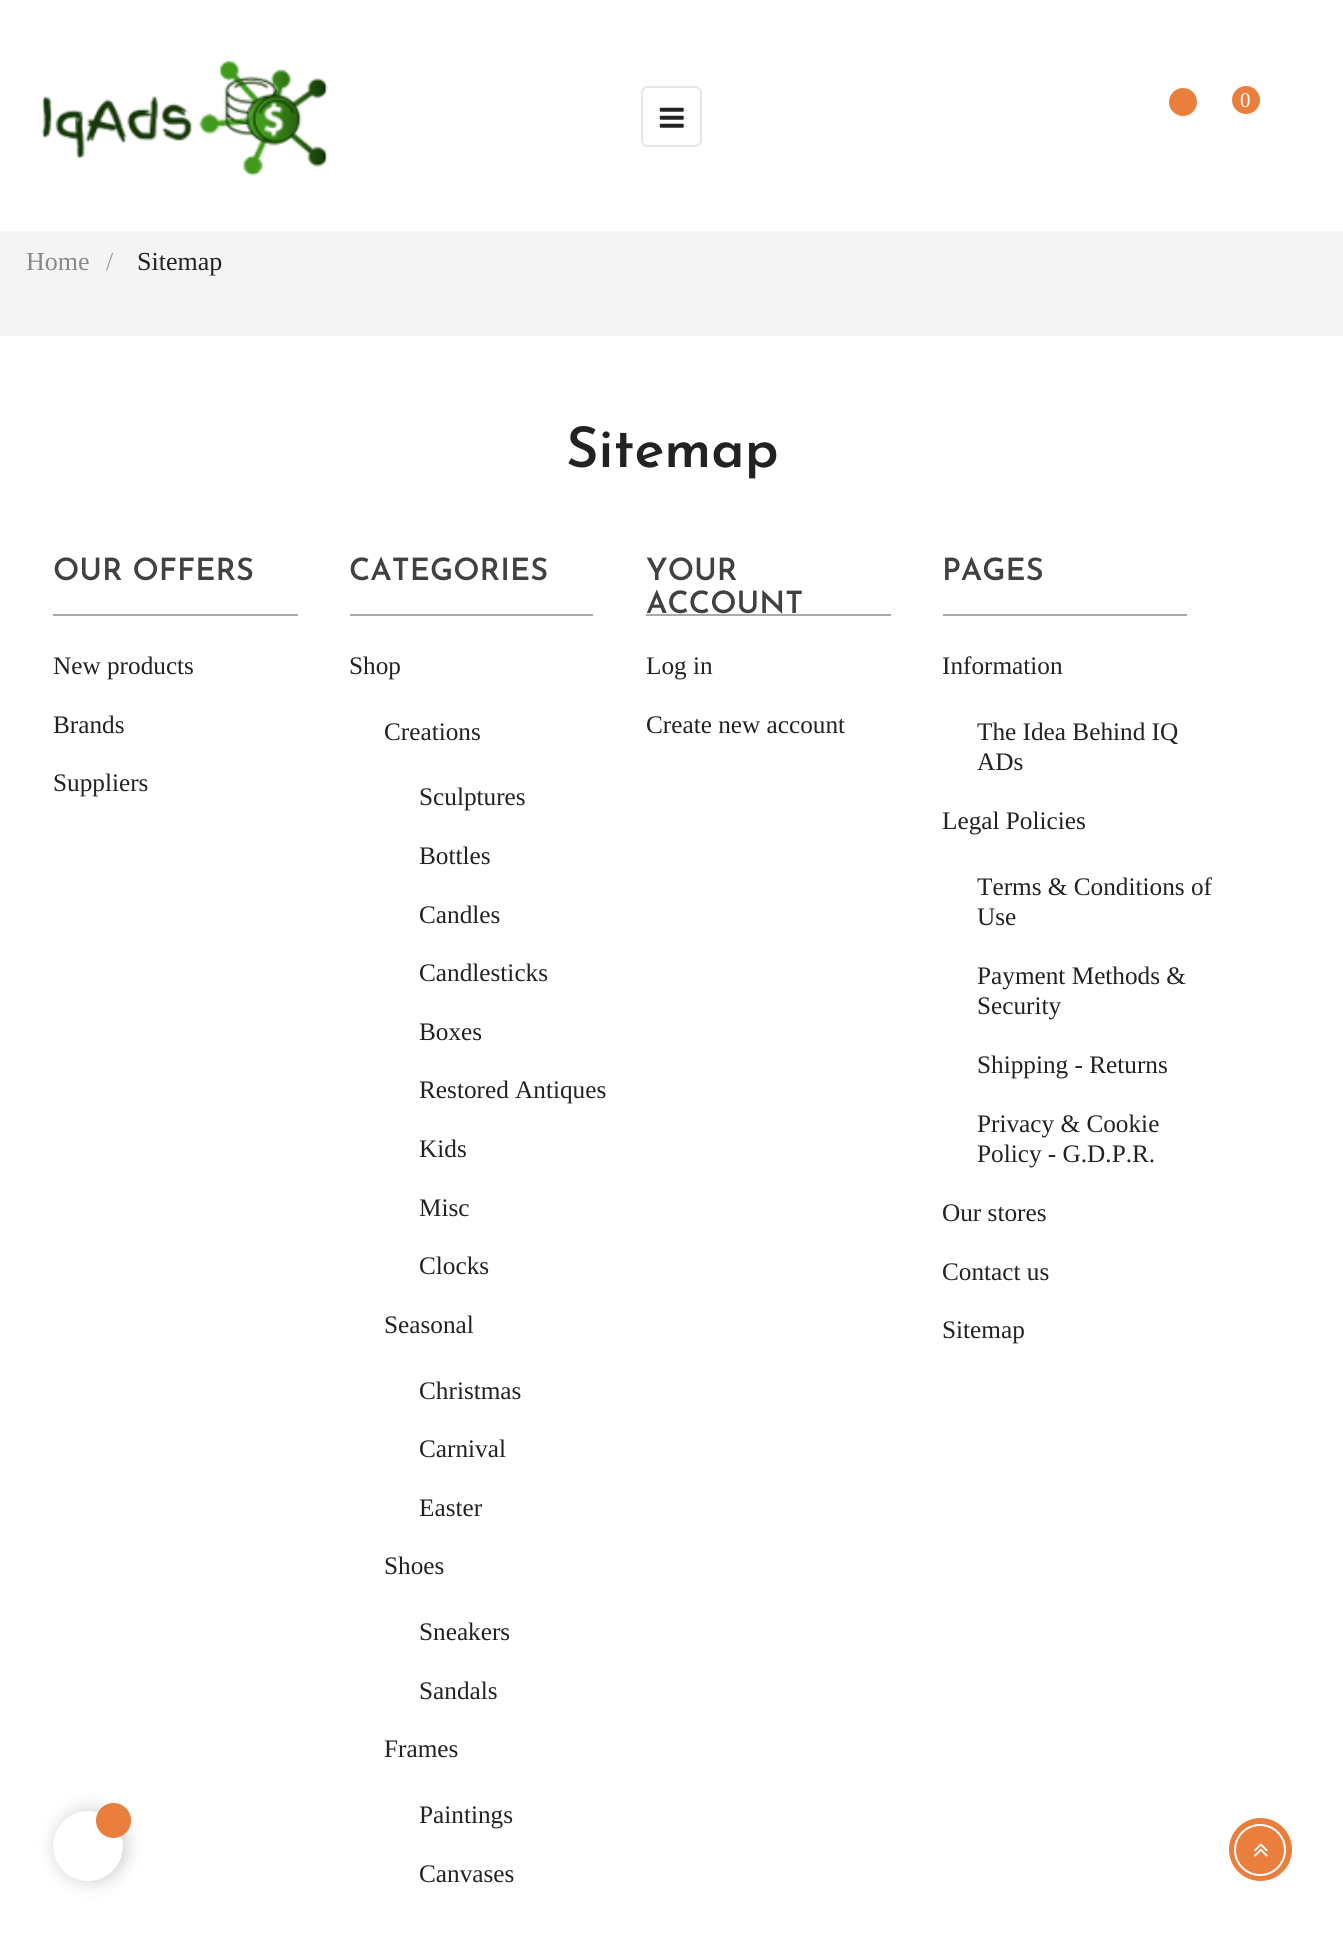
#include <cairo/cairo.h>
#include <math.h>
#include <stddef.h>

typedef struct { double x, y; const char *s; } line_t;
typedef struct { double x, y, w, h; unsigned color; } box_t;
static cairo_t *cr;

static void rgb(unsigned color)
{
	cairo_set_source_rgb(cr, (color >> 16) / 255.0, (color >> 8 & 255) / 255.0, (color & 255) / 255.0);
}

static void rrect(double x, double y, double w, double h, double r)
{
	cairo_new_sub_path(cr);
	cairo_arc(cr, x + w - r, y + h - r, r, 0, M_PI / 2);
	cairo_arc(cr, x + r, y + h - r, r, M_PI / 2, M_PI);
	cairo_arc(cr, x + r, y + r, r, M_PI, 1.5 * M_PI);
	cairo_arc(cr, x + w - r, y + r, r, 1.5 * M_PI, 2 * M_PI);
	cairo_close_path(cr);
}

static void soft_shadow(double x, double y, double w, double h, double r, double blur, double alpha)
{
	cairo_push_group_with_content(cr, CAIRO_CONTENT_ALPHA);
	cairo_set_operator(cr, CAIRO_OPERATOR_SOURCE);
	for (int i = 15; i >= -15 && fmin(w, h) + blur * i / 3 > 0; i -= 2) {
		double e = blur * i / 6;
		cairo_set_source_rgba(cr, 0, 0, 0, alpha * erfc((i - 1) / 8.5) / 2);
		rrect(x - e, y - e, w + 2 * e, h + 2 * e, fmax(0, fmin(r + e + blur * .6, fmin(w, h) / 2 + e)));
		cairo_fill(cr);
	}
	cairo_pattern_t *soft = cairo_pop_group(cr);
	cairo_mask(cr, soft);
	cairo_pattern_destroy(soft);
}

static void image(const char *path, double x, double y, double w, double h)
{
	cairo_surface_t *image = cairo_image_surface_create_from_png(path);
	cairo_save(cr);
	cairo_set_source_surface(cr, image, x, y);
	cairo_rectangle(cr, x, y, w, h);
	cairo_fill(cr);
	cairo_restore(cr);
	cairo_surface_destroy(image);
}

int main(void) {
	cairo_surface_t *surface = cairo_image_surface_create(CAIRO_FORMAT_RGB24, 1343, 1933);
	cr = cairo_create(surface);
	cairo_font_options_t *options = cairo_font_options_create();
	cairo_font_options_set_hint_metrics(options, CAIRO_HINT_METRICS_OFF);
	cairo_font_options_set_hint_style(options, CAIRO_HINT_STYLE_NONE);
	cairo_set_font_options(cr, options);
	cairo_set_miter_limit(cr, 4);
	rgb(0xffffff);
	cairo_paint(cr);
	image("img/1.png", 41, 60, 287, 116);
	rrect(642, 87, 59, 59, 6);
	rgb(0xe6e6e6);
	cairo_stroke(cr);
	image("img/2.png", 659, 107, 25, 21);
	rgb(0xe97e3d);
	cairo_arc(cr, 1183, 102, 14, 0, 2 * M_PI);
	cairo_fill(cr);
	cairo_arc(cr, 1246, 100, 14, 0, 2 * M_PI);
	cairo_fill(cr);
	{
		static const box_t items[] = {
			{0, 231, 1343, 105, 0xf4f4f4},
			{53, 614, 245, 2, 0xacaaa6},
			{350, 614, 243, 2, 0xacaaa6},
			{646, 614, 245, 2, 0xacaaa6},
			{943, 614, 244, 2, 0xacaaa6},
		};
		for (size_t i = 0; i < sizeof items / sizeof *items; i++) {
			rgb(items[i].color);
			cairo_rectangle(cr, items[i].x, items[i].y, items[i].w, items[i].h);
			cairo_fill(cr);
		}
	}
	rgb(0xe97e3d);
	cairo_arc(cr, 1260.5, 1849.5, 31.5, 0, 2 * M_PI);
	cairo_fill(cr);
	cairo_arc(cr, 1260, 1850, 25, 0, 2 * M_PI);
	rgb(0xffffff);
	cairo_stroke(cr);
	image("img/3.png", 1254, 1843, 14, 14);
	rgb(0x000000);
	soft_shadow(56, 1811, 70, 70, 35, 9, 0.2);
	rgb(0xffffff);
	cairo_arc(cr, 88, 1846, 35, 0, 2 * M_PI);
	cairo_fill(cr);
	rgb(0xe97e3d);
	cairo_arc(cr, 113.5, 1820.5, 17.5, 0, 2 * M_PI);
	cairo_fill(cr);
	cairo_select_font_face(cr, "Liberation Serif", CAIRO_FONT_SLANT_NORMAL, CAIRO_FONT_WEIGHT_NORMAL);
	cairo_set_font_size(cr, 21);
	rgb(0xffffff);
	cairo_move_to(cr, 1240, 107);
	cairo_show_text(cr, "0");
	cairo_set_font_size(cr, 26);
	rgb(0x888888);
	cairo_move_to(cr, 26, 270);
	cairo_show_text(cr, "Home");
	rgb(0x999999);
	cairo_move_to(cr, 106, 270);
	cairo_show_text(cr, "/");
	rgb(0x222222);
	cairo_move_to(cr, 137, 270);
	cairo_show_text(cr, "Sitemap");
	cairo_select_font_face(cr, "Josefin Sans SemiBold", CAIRO_FONT_SLANT_NORMAL, CAIRO_FONT_WEIGHT_NORMAL);
	cairo_set_font_size(cr, 56);
	cairo_move_to(cr, 566, 467);
	cairo_show_text(cr, "Sitemap");
	cairo_set_font_size(cr, 30.75);
	rgb(0x414141);
	cairo_move_to(cr, 53, 580);
	cairo_show_text(cr, "OUR OFFERS");
	cairo_select_font_face(cr, "Liberation Serif", CAIRO_FONT_SLANT_NORMAL, CAIRO_FONT_WEIGHT_NORMAL);
	cairo_set_font_size(cr, 25.25);
	rgb(0x222222);
	{
		static const line_t items[] = {
			{53, 674, "New products"},
			{53, 733, "Brands"},
			{53, 791, "Suppliers"},
		};
		for (size_t i = 0; i < sizeof items / sizeof *items; i++) {
			cairo_move_to(cr, items[i].x, items[i].y);
			cairo_show_text(cr, items[i].s);
		}
	}
	cairo_select_font_face(cr, "Josefin Sans SemiBold", CAIRO_FONT_SLANT_NORMAL, CAIRO_FONT_WEIGHT_NORMAL);
	cairo_set_font_size(cr, 30.75);
	rgb(0x414141);
	cairo_move_to(cr, 349, 580);
	cairo_show_text(cr, "CATEGORIES");
	cairo_select_font_face(cr, "Liberation Serif", CAIRO_FONT_SLANT_NORMAL, CAIRO_FONT_WEIGHT_NORMAL);
	cairo_set_font_size(cr, 25.25);
	rgb(0x222222);
	{
		static const line_t items[] = {
			{349, 674, "Shop"},
			{384, 740, "Creations"},
			{419, 805, "Sculptures"},
			{419, 864, "Bottles"},
			{419, 923, "Candles"},
			{419, 981, "Candlesticks"},
			{419, 1040, "Boxes"},
			{419, 1098, "Restored Antiques"},
			{419, 1157, "Kids"},
			{419, 1216, "Misc"},
			{419, 1274, "Clocks"},
			{384, 1333, "Seasonal"},
			{419, 1399, "Christmas"},
			{419, 1457, "Carnival"},
			{419, 1516, "Easter"},
			{384, 1574, "Shoes"},
			{419, 1640, "Sneakers"},
			{419, 1699, "Sandals"},
			{384, 1757, "Frames"},
			{419, 1823, "Paintings"},
			{419, 1882, "Canvases"},
		};
		for (size_t i = 0; i < sizeof items / sizeof *items; i++) {
			cairo_move_to(cr, items[i].x, items[i].y);
			cairo_show_text(cr, items[i].s);
		}
	}
	cairo_select_font_face(cr, "Josefin Sans SemiBold", CAIRO_FONT_SLANT_NORMAL, CAIRO_FONT_WEIGHT_NORMAL);
	cairo_set_font_size(cr, 30.75);
	rgb(0x414141);
	cairo_move_to(cr, 646, 580);
	cairo_show_text(cr, "YOUR");
	cairo_move_to(cr, 646, 613);
	cairo_show_text(cr, "ACCOUNT");
	cairo_select_font_face(cr, "Liberation Serif", CAIRO_FONT_SLANT_NORMAL, CAIRO_FONT_WEIGHT_NORMAL);
	cairo_set_font_size(cr, 25.25);
	rgb(0x222222);
	cairo_move_to(cr, 646, 674);
	cairo_show_text(cr, "Log in");
	cairo_move_to(cr, 646, 733);
	cairo_show_text(cr, "Create new account");
	cairo_select_font_face(cr, "Josefin Sans SemiBold", CAIRO_FONT_SLANT_NORMAL, CAIRO_FONT_WEIGHT_NORMAL);
	cairo_set_font_size(cr, 30.75);
	rgb(0x414141);
	cairo_move_to(cr, 942, 580);
	cairo_show_text(cr, "PAGES");
	cairo_select_font_face(cr, "Liberation Serif", CAIRO_FONT_SLANT_NORMAL, CAIRO_FONT_WEIGHT_NORMAL);
	cairo_set_font_size(cr, 25.25);
	rgb(0x222222);
	{
		static const line_t items[] = {
			{942, 674, "Information"},
			{977, 740, "The Idea Behind IQ"},
			{977, 770, "ADs"},
			{942, 829, "Legal Policies"},
			{977, 895, "Terms & Conditions of"},
			{977, 925, "Use"},
			{977, 984, "Payment Methods &"},
			{977, 1014, "Security"},
			{977, 1073, "Shipping - Returns"},
			{977, 1132, "Privacy & Cookie"},
			{977, 1162, "Policy - G.D.P.R."},
			{942, 1221, "Our stores"},
			{942, 1280, "Contact us"},
			{942, 1338, "Sitemap"},
		};
		for (size_t i = 0; i < sizeof items / sizeof *items; i++) {
			cairo_move_to(cr, items[i].x, items[i].y);
			cairo_show_text(cr, items[i].s);
		}
	}
	cairo_surface_write_to_png(surface, "page.png");
	cairo_font_options_destroy(options);
	cairo_destroy(cr);
	cairo_surface_destroy(surface);
	return 0;
}
